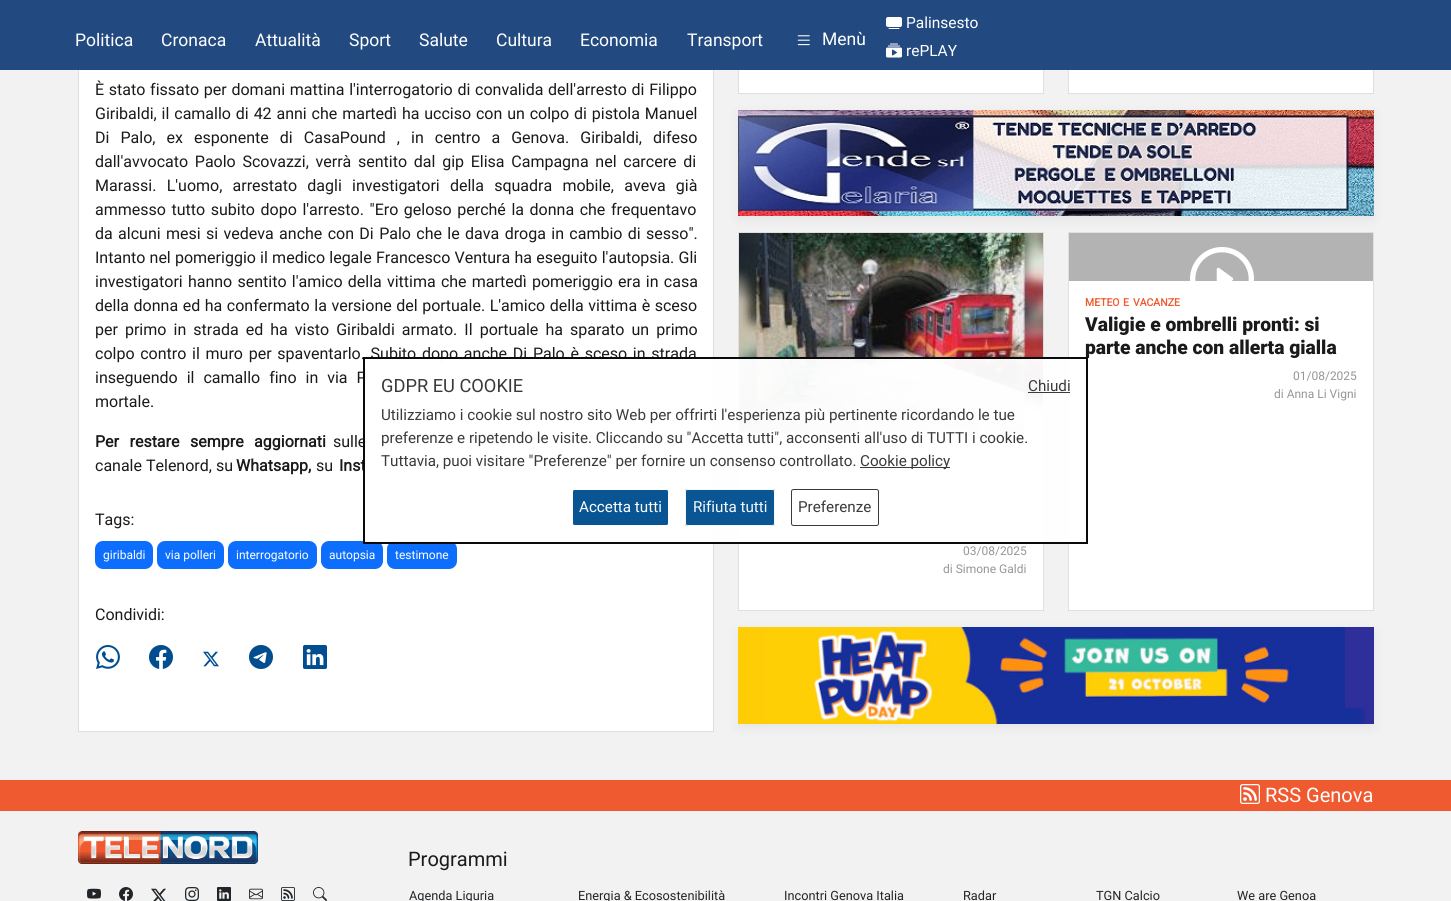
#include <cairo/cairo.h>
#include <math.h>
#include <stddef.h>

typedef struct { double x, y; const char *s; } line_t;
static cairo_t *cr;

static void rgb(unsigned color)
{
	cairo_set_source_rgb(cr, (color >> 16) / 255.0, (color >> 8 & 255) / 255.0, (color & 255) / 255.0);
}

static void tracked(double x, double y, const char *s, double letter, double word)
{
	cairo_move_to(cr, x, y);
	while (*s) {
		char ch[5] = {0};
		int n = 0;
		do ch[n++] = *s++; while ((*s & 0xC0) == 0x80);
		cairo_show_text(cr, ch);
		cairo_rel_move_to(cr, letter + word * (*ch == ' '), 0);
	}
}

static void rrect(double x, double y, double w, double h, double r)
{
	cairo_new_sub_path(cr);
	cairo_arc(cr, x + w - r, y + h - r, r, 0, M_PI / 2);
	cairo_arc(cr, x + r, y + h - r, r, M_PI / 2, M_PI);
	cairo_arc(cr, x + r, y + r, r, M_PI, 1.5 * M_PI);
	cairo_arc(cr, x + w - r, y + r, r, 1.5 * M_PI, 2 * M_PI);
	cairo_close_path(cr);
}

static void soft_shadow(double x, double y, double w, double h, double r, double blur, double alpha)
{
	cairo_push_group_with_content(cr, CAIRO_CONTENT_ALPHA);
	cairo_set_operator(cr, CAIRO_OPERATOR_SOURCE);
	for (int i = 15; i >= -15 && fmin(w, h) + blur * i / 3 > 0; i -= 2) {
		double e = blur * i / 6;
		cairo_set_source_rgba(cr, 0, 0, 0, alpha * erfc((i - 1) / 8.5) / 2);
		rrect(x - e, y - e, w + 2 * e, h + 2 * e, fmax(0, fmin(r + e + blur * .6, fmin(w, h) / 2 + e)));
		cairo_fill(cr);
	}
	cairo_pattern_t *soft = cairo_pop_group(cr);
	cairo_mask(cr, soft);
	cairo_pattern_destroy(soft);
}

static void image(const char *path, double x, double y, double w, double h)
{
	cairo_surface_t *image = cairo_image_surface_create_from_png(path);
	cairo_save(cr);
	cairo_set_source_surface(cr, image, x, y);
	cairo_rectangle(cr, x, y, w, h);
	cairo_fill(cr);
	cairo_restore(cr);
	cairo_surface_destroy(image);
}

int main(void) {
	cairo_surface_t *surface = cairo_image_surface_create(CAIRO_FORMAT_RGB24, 1451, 901);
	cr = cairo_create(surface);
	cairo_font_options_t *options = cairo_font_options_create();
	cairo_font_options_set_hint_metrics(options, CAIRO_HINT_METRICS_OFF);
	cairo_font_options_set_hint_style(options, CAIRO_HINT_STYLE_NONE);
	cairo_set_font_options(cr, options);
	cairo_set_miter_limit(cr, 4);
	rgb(0xf2f2f2);
	cairo_paint(cr);
	rgb(0xffffff);
	cairo_rectangle(cr, 79, 70, 634, 661);
	cairo_fill(cr);
	cairo_rectangle(cr, 78.5, -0.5, 635, 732);
	rgb(0xdfdfdf);
	cairo_set_line_width(cr, 1);
	cairo_stroke(cr);
	rgb(0xffffff);
	cairo_rectangle(cr, 739, 70, 304, 23);
	cairo_fill(cr);
	cairo_rectangle(cr, 738.5, -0.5, 305, 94);
	rgb(0xdfdfdf);
	cairo_stroke(cr);
	rgb(0xffffff);
	cairo_rectangle(cr, 1069, 70, 304, 23);
	cairo_fill(cr);
	cairo_rectangle(cr, 1068.5, -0.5, 305, 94);
	rgb(0xdfdfdf);
	cairo_stroke(cr);
	rgb(0x234a80);
	cairo_rectangle(cr, 0, 0, 1451, 70);
	cairo_fill(cr);
	image("img/1.png", 797, 35, 13, 11);
	image("img/2.png", 886, 17, 16, 12);
	image("img/3.png", 886, 43, 16, 15);
	rgb(0x0d6efd);
	rrect(95, 541, 58, 28, 8);
	cairo_fill(cr);
	rrect(157, 541, 67, 28, 8);
	cairo_fill(cr);
	rrect(228, 541, 89, 28, 8);
	cairo_fill(cr);
	rrect(321, 541, 62, 28, 8);
	cairo_fill(cr);
	rrect(387, 541, 70, 28, 8);
	cairo_fill(cr);
	image("img/4.png", 96, 645, 24, 24);
	image("img/5.png", 149, 645, 24, 24);
	image("img/6.png", 203, 651, 16, 16);
	image("img/7.png", 249, 645, 24, 24);
	image("img/8.png", 303, 645, 24, 24);
	rgb(0x000000);
	soft_shadow(738, 114, 636, 106, 0, 6, 0.05);
	image("img/9.png", 738, 110, 636, 106);
	rgb(0xffffff);
	cairo_rectangle(cr, 1069, 281, 304, 329);
	cairo_fill(cr);
	cairo_rectangle(cr, 1068.5, 232.5, 305, 378);
	rgb(0xdfdfdf);
	cairo_stroke(cr);
	rgb(0xb3b3b3);
	cairo_rectangle(cr, 1069, 233, 304, 48);
	cairo_fill(cr);
	image("img/10.png", 1190, 247, 64, 34);
	rgb(0xffffff);
	cairo_rectangle(cr, 739, 433, 304, 177);
	cairo_fill(cr);
	cairo_rectangle(cr, 738.5, 232.5, 305, 378);
	rgb(0xdfdfdf);
	cairo_stroke(cr);
	image("img/11.png", 739, 233, 304, 200);
	rgb(0x000000);
	soft_shadow(738, 631, 636, 97, 0, 6, 0.05);
	image("img/12.png", 738, 627, 636, 97);
	rgb(0xef5a30);
	cairo_rectangle(cr, 0, 780, 1451, 31);
	cairo_fill(cr);
	image("img/13.png", 1240, 784, 20, 20);
	image("img/14.png", 78, 831, 180, 33);
	image("img/15.png", 87, 888, 14, 11);
	image("img/16.png", 119, 887, 14, 14);
	image("img/17.png", 151, 888, 15, 13);
	image("img/18.png", 185, 887, 14, 14);
	image("img/19.png", 217, 887, 14, 14);
	image("img/20.png", 249, 888, 14, 12);
	image("img/21.png", 281, 887, 14, 14);
	image("img/22.png", 313, 887, 14, 14);
	cairo_select_font_face(cr, "Roboto", CAIRO_FONT_SLANT_NORMAL, CAIRO_FONT_WEIGHT_NORMAL);
	cairo_set_font_size(cr, 17.5);
	rgb(0xffffff);
	{
		static const line_t items[] = {
			{75, 46, "Politica"},
			{161, 46, "Cronaca"},
			{255, 46, "Attualità"},
			{349, 46, "Sport"},
			{419, 46, "Salute"},
			{496, 46, "Cultura"},
			{580, 46, "Economia"},
			{687, 46, "Transport"},
			{822, 45, "Menù"},
		};
		for (size_t i = 0; i < sizeof items / sizeof *items; i++) {
			cairo_move_to(cr, items[i].x, items[i].y);
			cairo_show_text(cr, items[i].s);
		}
	}
	cairo_set_font_size(cr, 15.5);
	cairo_move_to(cr, 906, 28);
	cairo_show_text(cr, "Palinsesto");
	cairo_move_to(cr, 906, 56);
	cairo_show_text(cr, "rePLAY");
	cairo_set_font_size(cr, 16);
	rgb(0x1a1a1a);
	tracked(95, 95, "È stato fissato per domani mattina l'interrogatorio di convalida dell'arresto di Filippo", 0, 0.75);
	tracked(95, 119, "Giribaldi, il camallo di 42 anni che martedì ha ucciso con un colpo di pistola Manuel", 0, 0.9);
	tracked(95, 143, "Di Palo, ex esponente di CasaPound , in centro a Genova. Giribaldi, difeso", 0, 7.1);
	tracked(95, 167, "dall'avvocato Paolo Scovazzi, verrà sentito dal gip Elisa Campagna nel carcere di", 0, 2.75);
	tracked(95, 191, "Marassi. L'uomo, arrestato dagli investigatori della squadra mobile, aveva già", 0, 6.25);
	tracked(95, 215, "ammesso tutto subito dopo l'arresto. \"Ero geloso perché la donna che frequentavo", 0, 1.6);
	tracked(95, 239, "da alcuni mesi si vedeva anche con Di Palo che le dava droga in cambio di sesso\".", 0, 1.4);
	tracked(95, 263, "Intanto nel pomeriggio il medico legale Francesco Ventura ha eseguito l'autopsia. Gli", 0, 0.25);
	tracked(95, 287, "investigatori hanno sentito l'amico della vittima che martedì pomeriggio era in casa", 0, 1.25);
	tracked(95, 311, "della donna ed ha confermato la versione del portuale. L'amico della vittima è sceso", 0, 0.6);
	tracked(95, 335, "per primo in strada ed ha visto Giribaldi armato. Il portuale ha sparato un primo", 0, 3.1);
	tracked(95, 359, "colpo contro il muro per spaventarlo. Subito dopo anche Di Palo è sceso in strada", 0, 1.75);
	tracked(95, 383, "inseguendo il camallo fino in via P", 0, 5);
	cairo_move_to(cr, 95, 407);
	cairo_show_text(cr, "mortale.");
	cairo_select_font_face(cr, "Roboto", CAIRO_FONT_SLANT_NORMAL, CAIRO_FONT_WEIGHT_BOLD);
	tracked(95, 447, "Per restare sempre aggiornati", 0, 6.5);
	cairo_select_font_face(cr, "Roboto", CAIRO_FONT_SLANT_NORMAL, CAIRO_FONT_WEIGHT_NORMAL);
	tracked(333, 447, "sulle", 0, 4);
	cairo_move_to(cr, 95, 471);
	cairo_show_text(cr, "canale Telenord, su");
	cairo_select_font_face(cr, "Roboto", CAIRO_FONT_SLANT_NORMAL, CAIRO_FONT_WEIGHT_BOLD);
	cairo_move_to(cr, 236, 471);
	cairo_show_text(cr, "Whatsapp,");
	cairo_select_font_face(cr, "Roboto", CAIRO_FONT_SLANT_NORMAL, CAIRO_FONT_WEIGHT_NORMAL);
	cairo_move_to(cr, 316, 471);
	cairo_show_text(cr, "su");
	cairo_select_font_face(cr, "Roboto", CAIRO_FONT_SLANT_NORMAL, CAIRO_FONT_WEIGHT_BOLD);
	cairo_move_to(cr, 339, 471);
	cairo_show_text(cr, "Inst");
	cairo_select_font_face(cr, "Roboto", CAIRO_FONT_SLANT_NORMAL, CAIRO_FONT_WEIGHT_NORMAL);
	cairo_move_to(cr, 95, 525);
	cairo_show_text(cr, "Tags:");
	cairo_set_font_size(cr, 12);
	rgb(0xffffff);
	{
		static const line_t items[] = {
			{103, 559, "giribaldi"},
			{165, 559, "via polleri"},
			{236, 559, "interrogatorio"},
			{329, 559, "autopsia"},
			{395, 559, "testimone"},
		};
		for (size_t i = 0; i < sizeof items / sizeof *items; i++) {
			cairo_move_to(cr, items[i].x, items[i].y);
			cairo_show_text(cr, items[i].s);
		}
	}
	cairo_set_font_size(cr, 16);
	rgb(0x1a1a1a);
	cairo_move_to(cr, 95, 620);
	cairo_show_text(cr, "Condividi:");
	cairo_select_font_face(cr, "Roboto", CAIRO_FONT_SLANT_NORMAL, CAIRO_FONT_WEIGHT_BOLD);
	cairo_set_font_size(cr, 10.5);
	rgb(0xef5a30);
	{
		static const line_t items[] = {
			{1085, 306, "METEO"},
			{1123, 306, "E"},
			{1133, 306, "VACANZE"},
		};
		for (size_t i = 0; i < sizeof items / sizeof *items; i++) {
			cairo_move_to(cr, items[i].x, items[i].y);
			cairo_show_text(cr, items[i].s);
		}
	}
	cairo_select_font_face(cr, "Roboto Black", CAIRO_FONT_SLANT_NORMAL, CAIRO_FONT_WEIGHT_NORMAL);
	cairo_set_font_size(cr, 19.25);
	rgb(0x1a1a1a);
	cairo_move_to(cr, 1085, 331);
	cairo_show_text(cr, "Valigie e ombrelli pronti: si");
	cairo_move_to(cr, 1085, 354);
	cairo_show_text(cr, "parte anche con allerta gialla");
	cairo_select_font_face(cr, "Roboto", CAIRO_FONT_SLANT_NORMAL, CAIRO_FONT_WEIGHT_NORMAL);
	cairo_set_font_size(cr, 12);
	rgb(0x969696);
	{
		static const line_t items[] = {
			{1293, 380, "01/08/2025"},
			{1274, 398, "di Anna Li Vigni"},
			{963, 555, "03/08/2025"},
			{943, 573, "di Simone Galdi"},
		};
		for (size_t i = 0; i < sizeof items / sizeof *items; i++) {
			cairo_move_to(cr, items[i].x, items[i].y);
			cairo_show_text(cr, items[i].s);
		}
	}
	cairo_set_source_rgba(cr, 1, 1, 1, 0.96);
	cairo_rectangle(cr, 363, 357, 725, 187);
	cairo_fill(cr);
	cairo_rectangle(cr, 364, 358, 723, 185);
	cairo_set_source_rgba(cr, 0, 0, 0, 0.96);
	cairo_set_line_width(cr, 2);
	cairo_stroke(cr);
	cairo_set_font_size(cr, 18.25);
	rgb(0x3a3a3a);
	cairo_move_to(cr, 381, 392);
	cairo_show_text(cr, "GDPR EU COOKIE");
	cairo_set_font_size(cr, 15.2);
	cairo_move_to(cr, 1028, 391);
	cairo_show_text(cr, "Chiudi");
	cairo_set_source_rgba(cr, 0.2, 0.2, 0.2, 0.96);
	cairo_rectangle(cr, 1028, 392, 42, 1);
	cairo_fill(cr);
	rgb(0x3a3a3a);
	{
		static const line_t items[] = {
			{381, 420, "Utilizziamo i cookie sul nostro sito Web per offrirti l'esperienza più pertinente ricordando le tue"},
			{381, 443, "preferenze e ripetendo le visite. Cliccando su \"Accetta tutti\", acconsenti all'uso di TUTTI i cookie."},
			{381, 466, "Tuttavia, puoi visitare \"Preferenze\" per fornire un consenso controllato."},
		};
		for (size_t i = 0; i < sizeof items / sizeof *items; i++) {
			cairo_move_to(cr, items[i].x, items[i].y);
			cairo_show_text(cr, items[i].s);
		}
	}
	rgb(0x3b3b3b);
	cairo_rectangle(cr, 860, 467, 90, 1);
	cairo_fill(cr);
	rgb(0x3a3a3a);
	cairo_move_to(cr, 860, 466);
	cairo_show_text(cr, "Cookie policy");
	rgb(0x095594);
	rrect(572.5, 489.5, 96, 36, 2);
	cairo_fill_preserve(cr);
	rgb(0xffffff);
	cairo_set_line_width(cr, 1);
	cairo_stroke(cr);
	cairo_move_to(cr, 579, 512);
	cairo_show_text(cr, "Accetta tutti");
	cairo_set_source_rgba(cr, 0, 0.306, 0.565, 0.96);
	rrect(685, 489, 90, 37, 2.5);
	cairo_fill(cr);
	rrect(685.5, 489.5, 89, 36, 2);
	cairo_set_source_rgba(cr, 1, 1, 1, 0.96);
	cairo_stroke(cr);
	rgb(0xf6f9fb);
	cairo_move_to(cr, 693, 512);
	cairo_show_text(cr, "Rifiuta tutti");
	rrect(791.5, 489.5, 87, 36, 2);
	cairo_set_source_rgba(cr, 0.2, 0.2, 0.2, 0.96);
	cairo_stroke(cr);
	rgb(0x3a3a3a);
	cairo_move_to(cr, 798, 512);
	cairo_show_text(cr, "Preferenze");
	cairo_set_font_size(cr, 20);
	rgb(0xffffff);
	cairo_move_to(cr, 1265, 802);
	cairo_show_text(cr, "RSS Genova");
	rgb(0x1a1a1a);
	cairo_move_to(cr, 408, 866);
	cairo_show_text(cr, "Programmi");
	cairo_set_font_size(cr, 12.75);
	rgb(0x212529);
	{
		static const line_t items[] = {
			{409, 900, "Agenda Liguria"},
			{578, 900, "Energia & Ecosostenibilità"},
			{784, 900, "Incontri Genova Italia"},
			{963, 900, "Radar"},
			{1096, 900, "TGN Calcio"},
			{1237, 900, "We are Genoa"},
		};
		for (size_t i = 0; i < sizeof items / sizeof *items; i++) {
			cairo_move_to(cr, items[i].x, items[i].y);
			cairo_show_text(cr, items[i].s);
		}
	}
	cairo_surface_write_to_png(surface, "page.png");
	cairo_font_options_destroy(options);
	cairo_destroy(cr);
	cairo_surface_destroy(surface);
	return 0;
}
